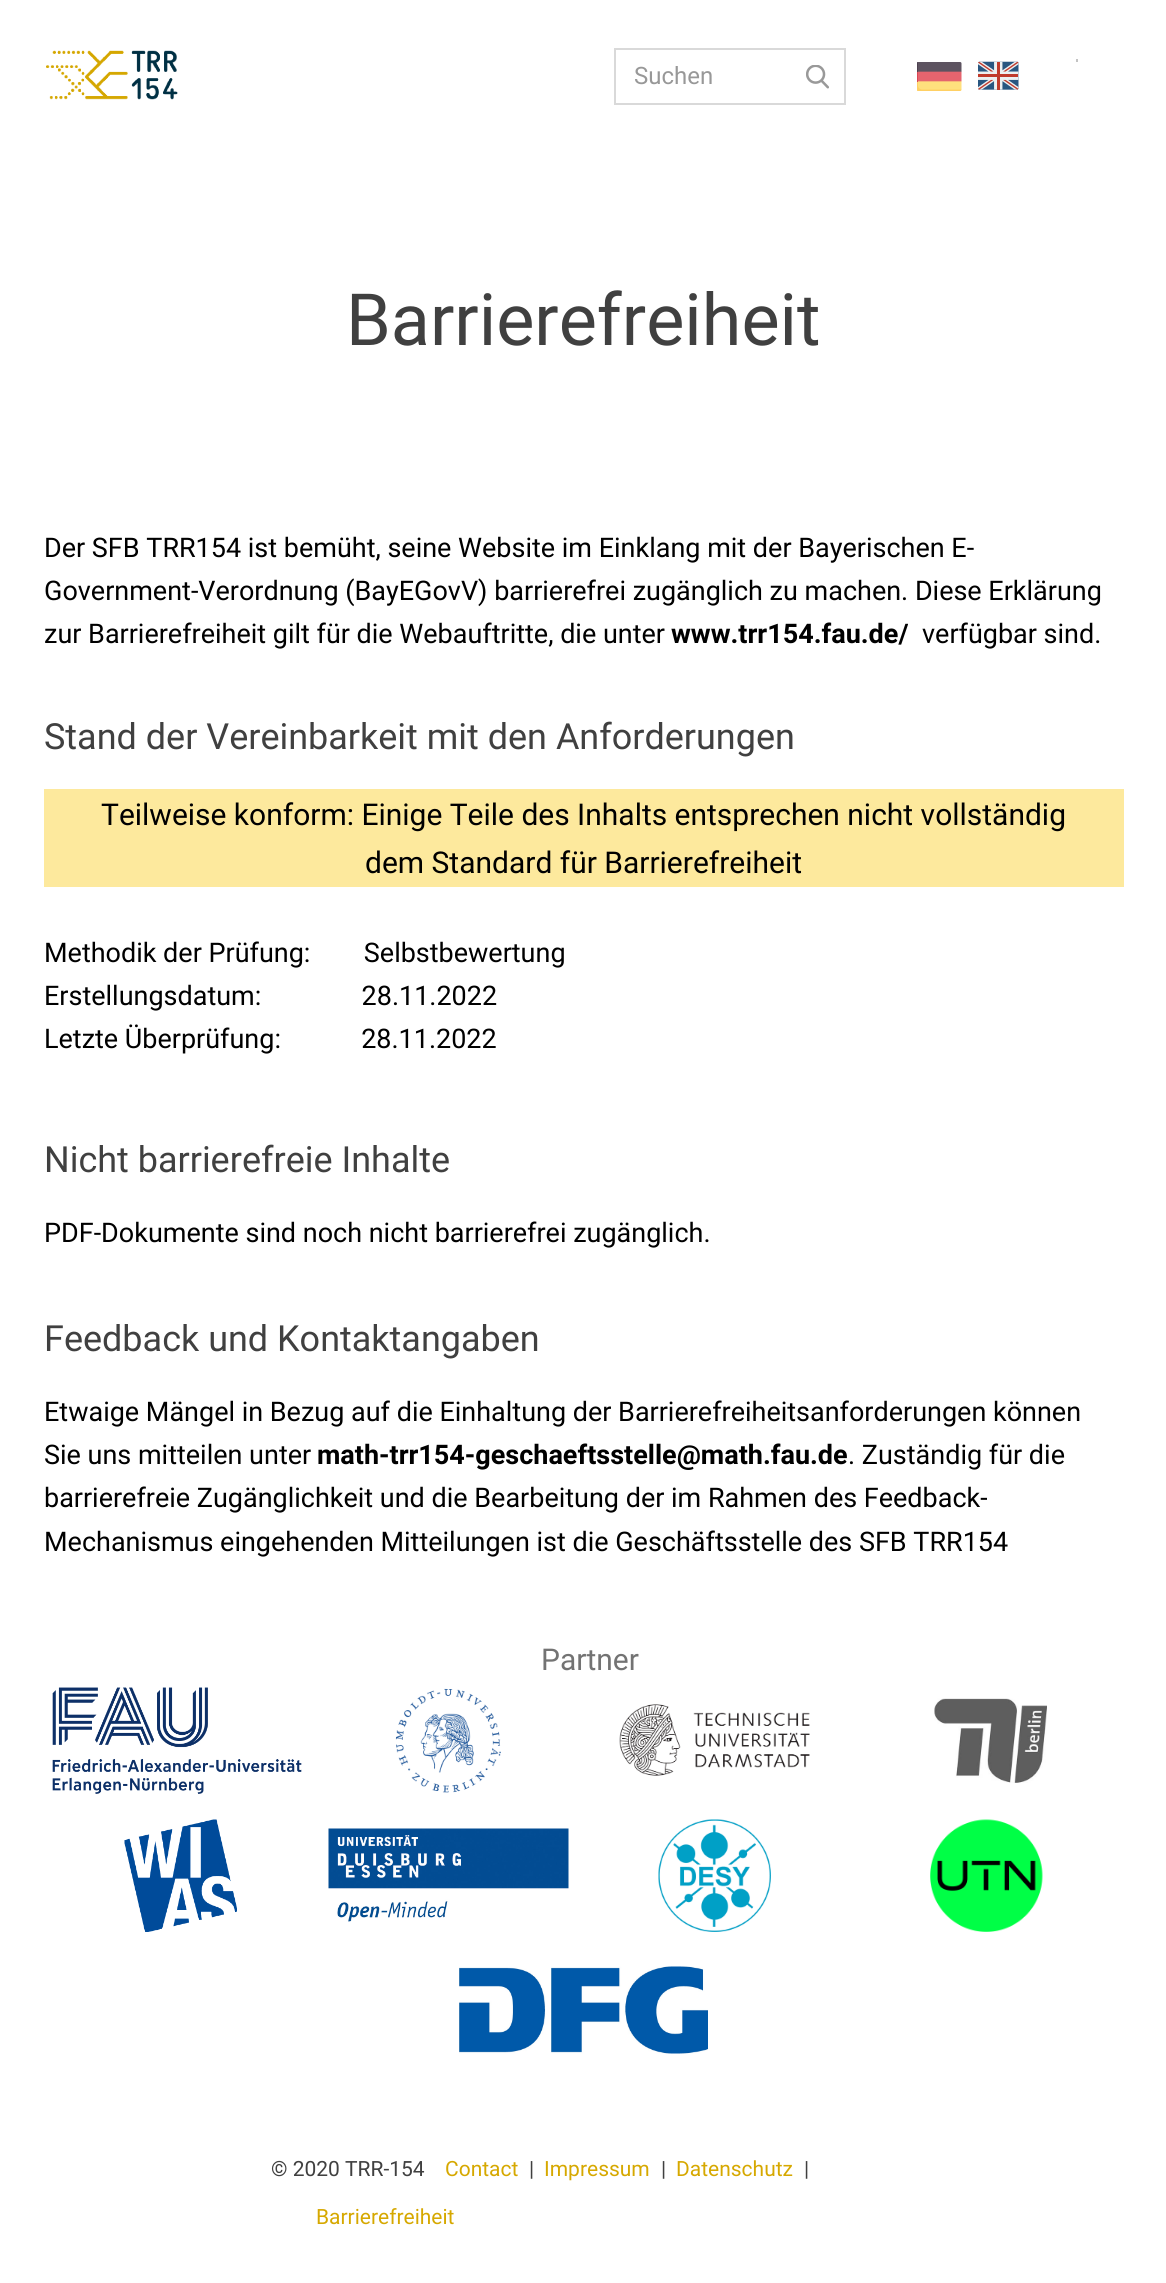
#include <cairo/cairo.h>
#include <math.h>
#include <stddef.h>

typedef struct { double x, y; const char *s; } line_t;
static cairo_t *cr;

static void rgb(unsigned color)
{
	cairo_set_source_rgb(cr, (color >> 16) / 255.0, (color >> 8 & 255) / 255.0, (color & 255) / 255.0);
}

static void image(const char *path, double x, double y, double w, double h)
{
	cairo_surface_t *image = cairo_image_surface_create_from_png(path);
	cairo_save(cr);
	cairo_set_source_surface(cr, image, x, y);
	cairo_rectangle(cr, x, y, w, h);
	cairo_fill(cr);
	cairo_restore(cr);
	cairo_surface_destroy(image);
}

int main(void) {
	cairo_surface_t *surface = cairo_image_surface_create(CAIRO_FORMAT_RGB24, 1166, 2283);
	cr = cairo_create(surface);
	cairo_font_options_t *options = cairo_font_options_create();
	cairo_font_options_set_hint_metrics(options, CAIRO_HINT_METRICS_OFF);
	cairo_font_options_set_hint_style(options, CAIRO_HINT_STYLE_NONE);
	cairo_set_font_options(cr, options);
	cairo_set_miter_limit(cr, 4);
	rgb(0xffffff);
	cairo_paint(cr);
	image("img/1.png", 46, 50, 132, 50);
	rgb(0xc3c3c3);
	cairo_rectangle(cr, 1076, 59, 2, 3);
	cairo_fill(cr);
	cairo_rectangle(cr, 615, 49, 230, 55);
	rgb(0xd9d9d9);
	cairo_stroke(cr);
	image("img/2.png", 806, 65, 23, 24);
	image("img/3.png", 917, 62, 45, 29);
	image("img/4.png", 978, 61, 41, 29);
	rgb(0xfde99d);
	cairo_rectangle(cr, 44, 789, 1080, 98);
	cairo_fill(cr);
	image("img/5.png", 52, 1687, 250, 107);
	image("img/6.png", 395, 1688, 106, 105);
	image("img/7.png", 619, 1704, 191, 72);
	image("img/8.png", 934, 1698, 113, 85);
	image("img/9.png", 124, 1819, 113, 113);
	image("img/10.png", 328, 1828, 241, 94);
	image("img/11.png", 658, 1819, 113, 113);
	image("img/12.png", 930, 1819, 113, 113);
	image("img/13.png", 459, 1966, 249, 88);
	cairo_select_font_face(cr, "Roboto", CAIRO_FONT_SLANT_NORMAL, CAIRO_FONT_WEIGHT_NORMAL);
	cairo_set_font_size(cr, 24);
	rgb(0x989898);
	cairo_move_to(cr, 634, 84);
	cairo_show_text(cr, "Suchen");
	cairo_set_font_size(cr, 72);
	rgb(0x404040);
	cairo_move_to(cr, 346, 345);
	cairo_show_text(cr, "Barrierefreiheit");
	cairo_set_font_size(cr, 27);
	rgb(0x000000);
	{
		static const line_t items[] = {
			{44, 557, "Der SFB TRR154 ist bemüht, seine Website im Einklang mit der Bayerischen E-"},
			{44, 600, "Government-Verordnung (BayEGovV) barrierefrei zugänglich zu machen. Diese Erklärung"},
			{44, 643, "zur Barrierefreiheit gilt für die Webauftritte, die unter"},
		};
		for (size_t i = 0; i < sizeof items / sizeof *items; i++) {
			cairo_move_to(cr, items[i].x, items[i].y);
			cairo_show_text(cr, items[i].s);
		}
	}
	cairo_select_font_face(cr, "Roboto", CAIRO_FONT_SLANT_NORMAL, CAIRO_FONT_WEIGHT_BOLD);
	cairo_move_to(cr, 671, 643);
	cairo_show_text(cr, "www.trr154.fau.de/");
	cairo_select_font_face(cr, "Roboto", CAIRO_FONT_SLANT_NORMAL, CAIRO_FONT_WEIGHT_NORMAL);
	cairo_move_to(cr, 922, 643);
	cairo_show_text(cr, "verfügbar sind.");
	cairo_set_font_size(cr, 36);
	rgb(0x404040);
	cairo_move_to(cr, 44, 749);
	cairo_show_text(cr, "Stand der Vereinbarkeit mit den Anforderungen");
	cairo_set_font_size(cr, 30);
	rgb(0x000000);
	cairo_move_to(cr, 101, 825);
	cairo_show_text(cr, "Teilweise konform: Einige Teile des Inhalts entsprechen nicht vollständig");
	cairo_move_to(cr, 365, 873);
	cairo_show_text(cr, "dem Standard für Barrierefreiheit");
	cairo_set_font_size(cr, 27);
	{
		static const line_t items[] = {
			{44, 962, "Methodik der Prüfung:        Selbstbewertung"},
			{44, 1005, "Erstellungsdatum:               28.11.2022"},
			{44, 1048, "Letzte Überprüfung:            28.11.2022"},
		};
		for (size_t i = 0; i < sizeof items / sizeof *items; i++) {
			cairo_move_to(cr, items[i].x, items[i].y);
			cairo_show_text(cr, items[i].s);
		}
	}
	cairo_set_font_size(cr, 36);
	rgb(0x404040);
	cairo_move_to(cr, 44, 1172);
	cairo_show_text(cr, "Nicht barrierefreie Inhalte");
	cairo_set_font_size(cr, 27);
	rgb(0x000000);
	cairo_move_to(cr, 44, 1242);
	cairo_show_text(cr, "PDF-Dokumente sind noch nicht barrierefrei zugänglich.");
	cairo_set_font_size(cr, 36);
	rgb(0x404040);
	cairo_move_to(cr, 44, 1351);
	cairo_show_text(cr, "Feedback und Kontaktangaben");
	cairo_set_font_size(cr, 27);
	rgb(0x000000);
	cairo_move_to(cr, 44, 1421);
	cairo_show_text(cr, "Etwaige Mängel in Bezug auf die Einhaltung der Barrierefreiheitsanforderungen können");
	cairo_move_to(cr, 44, 1464);
	cairo_show_text(cr, "Sie uns mitteilen unter");
	cairo_select_font_face(cr, "Roboto", CAIRO_FONT_SLANT_NORMAL, CAIRO_FONT_WEIGHT_BOLD);
	cairo_move_to(cr, 317, 1464);
	cairo_show_text(cr, "math-trr154-geschaeftsstelle@math.fau.de");
	cairo_select_font_face(cr, "Roboto", CAIRO_FONT_SLANT_NORMAL, CAIRO_FONT_WEIGHT_NORMAL);
	{
		static const line_t items[] = {
			{848, 1464, ". Zuständig für die"},
			{44, 1507, "barrierefreie Zugänglichkeit und die Bearbeitung der im Rahmen des Feedback-"},
			{44, 1551, "Mechanismus eingehenden Mitteilungen ist die Geschäftsstelle des SFB TRR154"},
		};
		for (size_t i = 0; i < sizeof items / sizeof *items; i++) {
			cairo_move_to(cr, items[i].x, items[i].y);
			cairo_show_text(cr, items[i].s);
		}
	}
	cairo_set_font_size(cr, 30);
	rgb(0x737373);
	cairo_move_to(cr, 541, 1670);
	cairo_show_text(cr, "Partner");
	cairo_set_font_size(cr, 21);
	rgb(0x404040);
	cairo_move_to(cr, 271, 2176);
	cairo_show_text(cr, "© 2020 TRR-154");
	rgb(0xd6a800);
	cairo_move_to(cr, 445, 2176);
	cairo_show_text(cr, "Contact");
	rgb(0x404040);
	cairo_move_to(cr, 529, 2176);
	cairo_show_text(cr, "|");
	rgb(0xd6a800);
	cairo_move_to(cr, 544, 2176);
	cairo_show_text(cr, "Impressum");
	rgb(0x404040);
	cairo_move_to(cr, 661, 2176);
	cairo_show_text(cr, "|");
	rgb(0xd6a800);
	cairo_move_to(cr, 676, 2176);
	cairo_show_text(cr, "Datenschutz");
	rgb(0x404040);
	cairo_move_to(cr, 804, 2176);
	cairo_show_text(cr, "|");
	rgb(0xd6a800);
	cairo_move_to(cr, 316, 2224);
	cairo_show_text(cr, "Barrierefreiheit");
	cairo_surface_write_to_png(surface, "page.png");
	cairo_font_options_destroy(options);
	cairo_destroy(cr);
	cairo_surface_destroy(surface);
	return 0;
}
